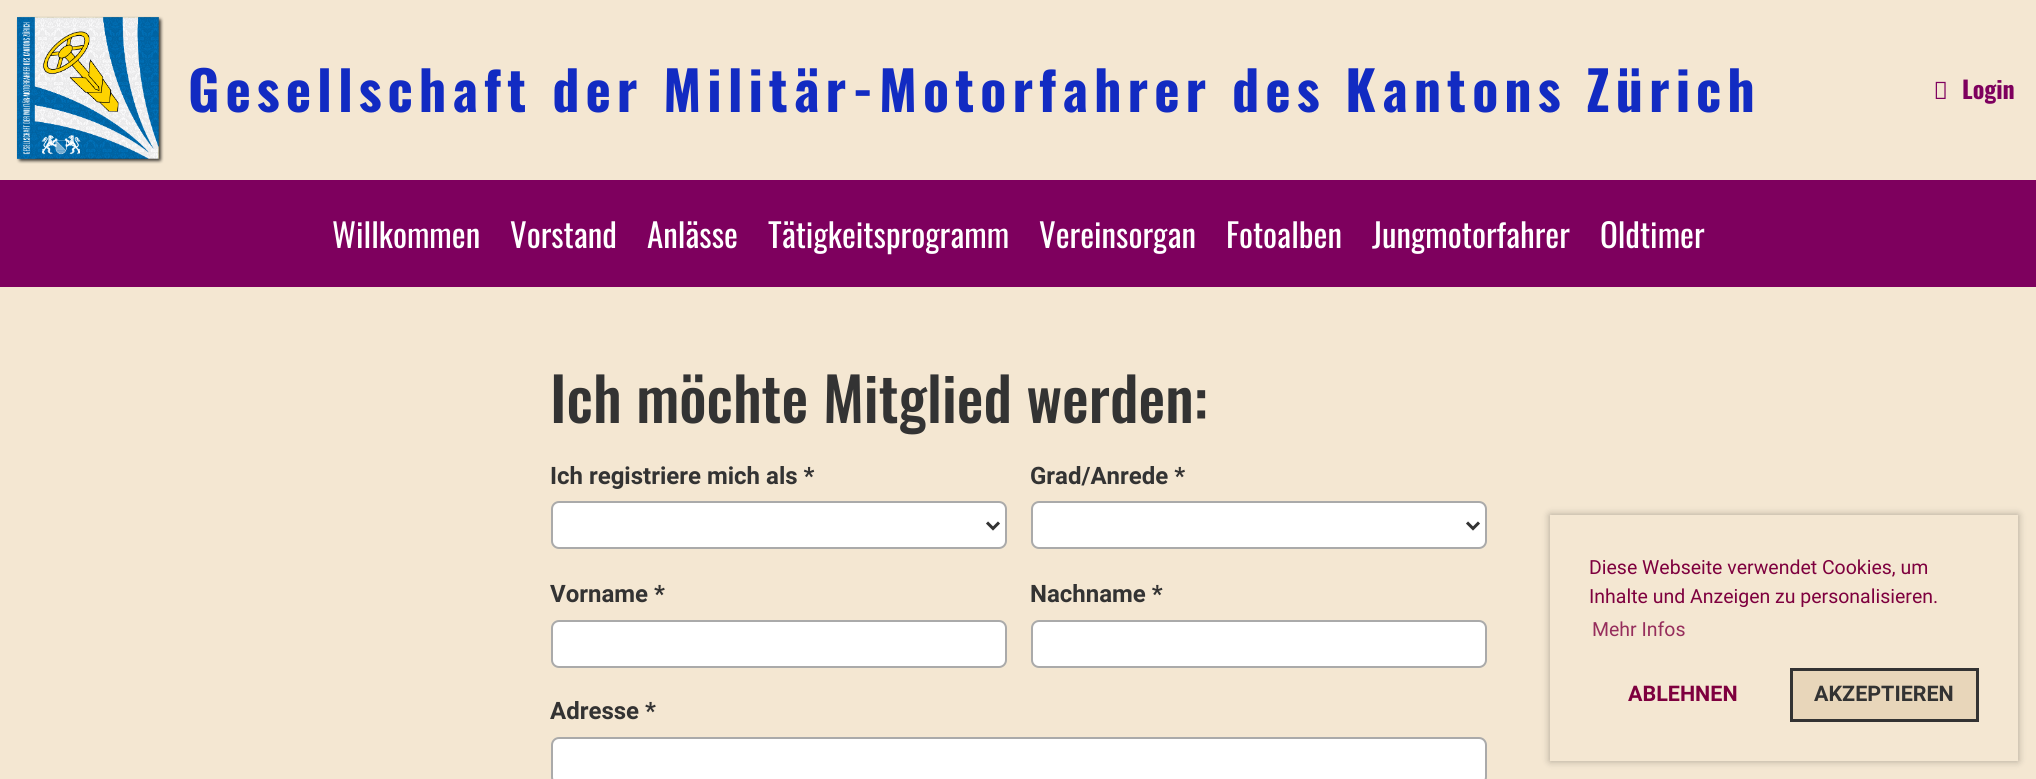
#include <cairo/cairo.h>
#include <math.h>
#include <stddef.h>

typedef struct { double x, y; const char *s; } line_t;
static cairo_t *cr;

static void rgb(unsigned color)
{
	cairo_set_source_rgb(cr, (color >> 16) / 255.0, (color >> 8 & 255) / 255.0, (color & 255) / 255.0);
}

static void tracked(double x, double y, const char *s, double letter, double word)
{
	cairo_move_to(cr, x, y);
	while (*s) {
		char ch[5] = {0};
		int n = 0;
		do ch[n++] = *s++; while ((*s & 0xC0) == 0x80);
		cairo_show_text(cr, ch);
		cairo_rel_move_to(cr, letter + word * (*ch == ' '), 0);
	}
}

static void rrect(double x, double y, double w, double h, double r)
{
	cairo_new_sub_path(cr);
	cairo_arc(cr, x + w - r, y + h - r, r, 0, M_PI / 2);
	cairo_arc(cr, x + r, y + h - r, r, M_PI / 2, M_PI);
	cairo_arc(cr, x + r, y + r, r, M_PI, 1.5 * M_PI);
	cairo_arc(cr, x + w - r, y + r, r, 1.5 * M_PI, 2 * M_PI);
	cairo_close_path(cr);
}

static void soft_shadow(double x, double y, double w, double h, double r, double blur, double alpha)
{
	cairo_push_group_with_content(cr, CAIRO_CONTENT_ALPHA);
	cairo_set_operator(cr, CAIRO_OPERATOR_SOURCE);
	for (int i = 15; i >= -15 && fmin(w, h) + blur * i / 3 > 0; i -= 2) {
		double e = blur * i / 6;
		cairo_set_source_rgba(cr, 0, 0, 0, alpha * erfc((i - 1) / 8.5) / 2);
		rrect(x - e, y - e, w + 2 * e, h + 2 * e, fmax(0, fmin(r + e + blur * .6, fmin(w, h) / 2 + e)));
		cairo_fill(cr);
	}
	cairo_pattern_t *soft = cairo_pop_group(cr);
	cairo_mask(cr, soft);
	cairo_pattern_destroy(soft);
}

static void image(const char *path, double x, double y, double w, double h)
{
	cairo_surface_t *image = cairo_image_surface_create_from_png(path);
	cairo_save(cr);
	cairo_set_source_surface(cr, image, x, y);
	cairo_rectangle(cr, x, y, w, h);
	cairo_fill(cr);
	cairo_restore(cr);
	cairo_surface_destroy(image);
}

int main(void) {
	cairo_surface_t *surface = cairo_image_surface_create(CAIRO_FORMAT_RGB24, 2036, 779);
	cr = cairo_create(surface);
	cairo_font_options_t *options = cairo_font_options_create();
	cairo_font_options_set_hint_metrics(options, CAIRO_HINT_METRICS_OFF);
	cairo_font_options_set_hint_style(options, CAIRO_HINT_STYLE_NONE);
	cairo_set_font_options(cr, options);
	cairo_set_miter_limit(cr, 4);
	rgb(0xf4e7d2);
	cairo_paint(cr);
	image("img/1.png", 16, 16, 148, 148);
	image("img/2.png", 1935, 81, 11, 18);
	rgb(0x7e005e);
	cairo_rectangle(cr, 0, 180, 2036, 107);
	cairo_fill(cr);
	rgb(0xffffff);
	rrect(552, 502, 454, 46, 7);
	cairo_fill_preserve(cr);
	rgb(0xaaaaaa);
	cairo_stroke(cr);
	cairo_new_path(cr);
	cairo_move_to(cr, 987, 522.5);
	cairo_line_to(cr, 993, 528.5);
	cairo_line_to(cr, 999, 522.5);
	rgb(0x333333);
	cairo_set_line_width(cr, 3);
	cairo_stroke(cr);
	rgb(0xffffff);
	rrect(1032, 502, 454, 46, 7);
	cairo_fill_preserve(cr);
	rgb(0xaaaaaa);
	cairo_set_line_width(cr, 2);
	cairo_stroke(cr);
	cairo_new_path(cr);
	cairo_move_to(cr, 1467, 522.5);
	cairo_line_to(cr, 1473, 528.5);
	cairo_line_to(cr, 1479, 522.5);
	rgb(0x333333);
	cairo_set_line_width(cr, 3);
	cairo_stroke(cr);
	rgb(0xffffff);
	rrect(552, 621, 454, 46, 7);
	cairo_fill_preserve(cr);
	rgb(0xaaaaaa);
	cairo_set_line_width(cr, 2);
	cairo_stroke(cr);
	rgb(0xffffff);
	rrect(1032, 621, 454, 46, 7);
	cairo_fill_preserve(cr);
	rgb(0xaaaaaa);
	cairo_stroke(cr);
	rgb(0xffffff);
	rrect(552, 738, 934, 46, 7);
	cairo_fill_preserve(cr);
	rgb(0xaaaaaa);
	cairo_stroke(cr);
	rgb(0x000000);
	soft_shadow(1550, 515, 468, 246, 0, 4, 0.3);
	rgb(0xf4e7d2);
	cairo_rectangle(cr, 1550, 515, 468, 246);
	cairo_fill(cr);
	rgb(0xe8d6ba);
	cairo_rectangle(cr, 1791.5, 669.5, 186, 51);
	cairo_fill_preserve(cr);
	rgb(0x333333);
	cairo_set_line_width(cr, 3);
	cairo_stroke(cr);
	cairo_select_font_face(cr, "Oswald", CAIRO_FONT_SLANT_NORMAL, CAIRO_FONT_WEIGHT_BOLD);
	cairo_set_font_size(cr, 54);
	rgb(0x122bc2);
	tracked(188, 112, "Gesellschaft der Militär-Motorfahrer des Kantons Zürich", 6, 0);
	cairo_set_font_size(cr, 24);
	rgb(0x7e005e);
	cairo_move_to(cr, 1962, 99);
	cairo_show_text(cr, "Login");
	cairo_select_font_face(cr, "Oswald", CAIRO_FONT_SLANT_NORMAL, CAIRO_FONT_WEIGHT_NORMAL);
	cairo_set_font_size(cr, 33);
	rgb(0xffffff);
	{
		static const line_t items[] = {
			{332, 248, "Willkommen"},
			{510, 248, "Vorstand"},
			{647, 248, "Anlässe"},
			{768, 248, "Tätigkeitsprogramm"},
			{1039, 248, "Vereinsorgan"},
			{1226, 248, "Fotoalben"},
			{1372, 248, "Jungmotorfahrer"},
			{1600, 248, "Oldtimer"},
		};
		for (size_t i = 0; i < sizeof items / sizeof *items; i++) {
			cairo_move_to(cr, items[i].x, items[i].y);
			cairo_show_text(cr, items[i].s);
		}
	}
	cairo_select_font_face(cr, "Oswald Medium", CAIRO_FONT_SLANT_NORMAL, CAIRO_FONT_WEIGHT_NORMAL);
	cairo_set_font_size(cr, 60);
	rgb(0x333333);
	cairo_move_to(cr, 550, 423);
	cairo_show_text(cr, "Ich möchte Mitglied werden:");
	cairo_select_font_face(cr, "Roboto", CAIRO_FONT_SLANT_NORMAL, CAIRO_FONT_WEIGHT_BOLD);
	cairo_set_font_size(cr, 24);
	{
		static const line_t items[] = {
			{550, 484, "Ich registriere mich als *"},
			{1030, 484, "Grad/Anrede *"},
			{550, 602, "Vorname *"},
			{1030, 602, "Nachname *"},
			{550, 719, "Adresse *"},
		};
		for (size_t i = 0; i < sizeof items / sizeof *items; i++) {
			cairo_move_to(cr, items[i].x, items[i].y);
			cairo_show_text(cr, items[i].s);
		}
	}
	cairo_select_font_face(cr, "Roboto", CAIRO_FONT_SLANT_NORMAL, CAIRO_FONT_WEIGHT_NORMAL);
	cairo_set_font_size(cr, 19.5);
	rgb(0x7e003e);
	cairo_move_to(cr, 1589, 574);
	cairo_show_text(cr, "Diese Webseite verwendet Cookies, um");
	cairo_move_to(cr, 1589, 603);
	cairo_show_text(cr, "Inhalte und Anzeigen zu personalisieren.");
	rgb(0x962e5c);
	cairo_move_to(cr, 1592, 636);
	cairo_show_text(cr, "Mehr Infos");
	cairo_select_font_face(cr, "Roboto", CAIRO_FONT_SLANT_NORMAL, CAIRO_FONT_WEIGHT_BOLD);
	cairo_set_font_size(cr, 21.5);
	rgb(0x7e003e);
	cairo_move_to(cr, 1628, 701);
	cairo_show_text(cr, "ABLEHNEN");
	rgb(0x333333);
	cairo_move_to(cr, 1814, 701);
	cairo_show_text(cr, "AKZEPTIEREN");
	cairo_surface_write_to_png(surface, "page.png");
	cairo_font_options_destroy(options);
	cairo_destroy(cr);
	cairo_surface_destroy(surface);
	return 0;
}
